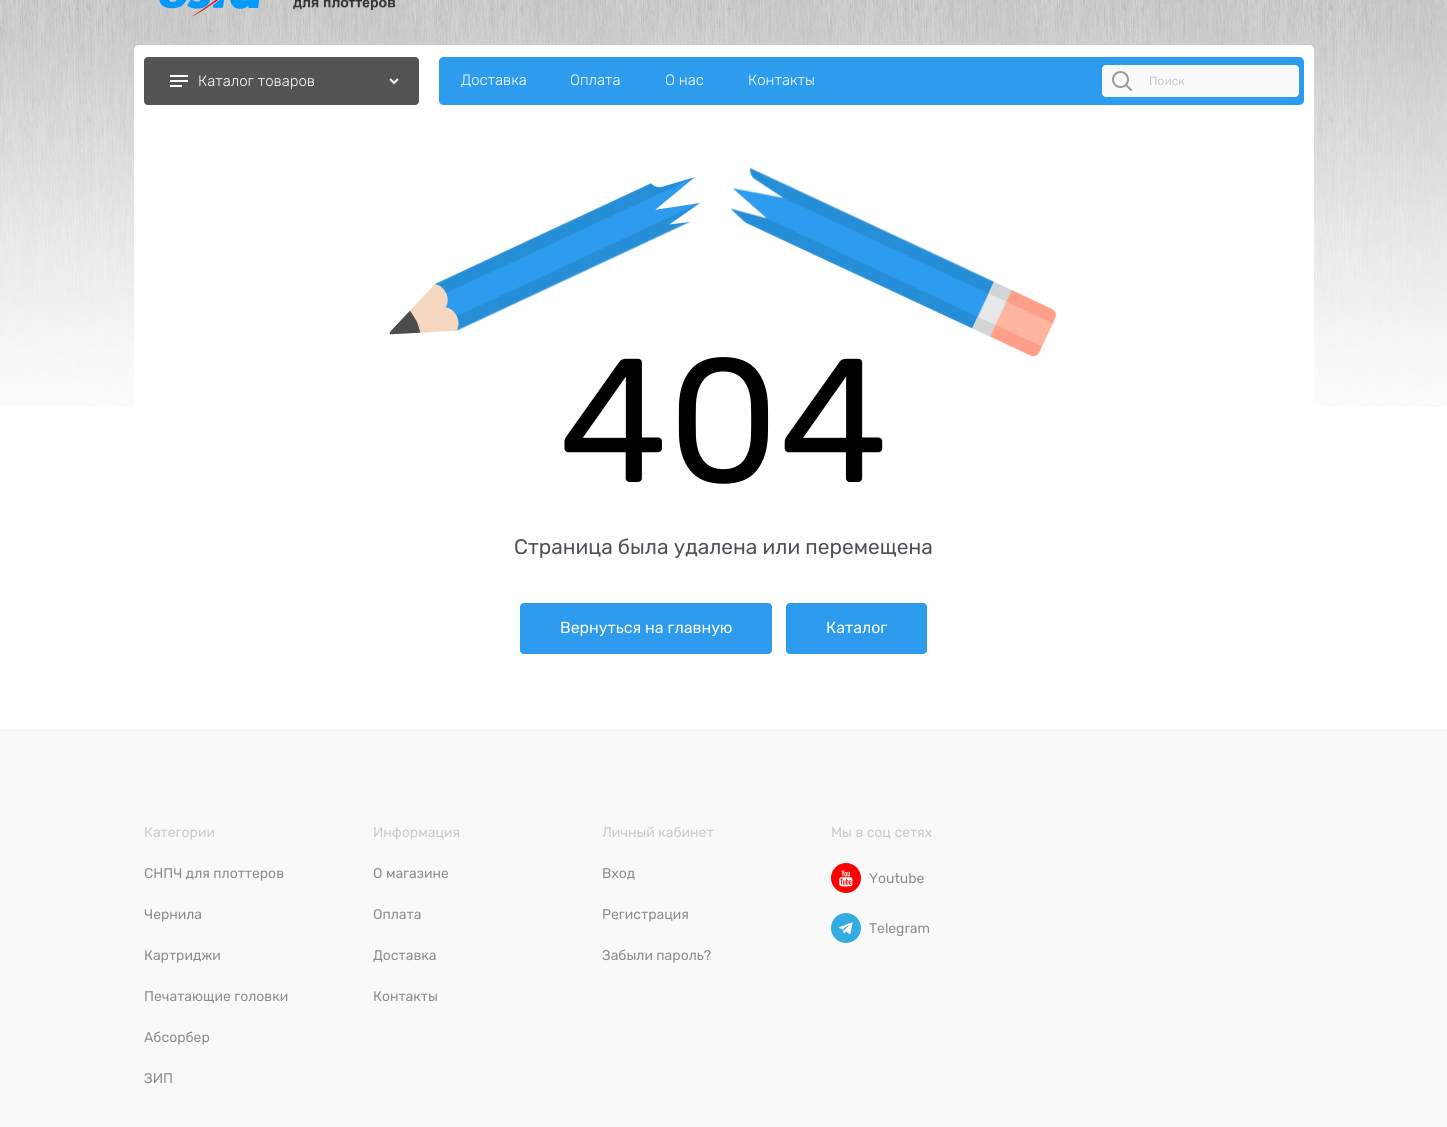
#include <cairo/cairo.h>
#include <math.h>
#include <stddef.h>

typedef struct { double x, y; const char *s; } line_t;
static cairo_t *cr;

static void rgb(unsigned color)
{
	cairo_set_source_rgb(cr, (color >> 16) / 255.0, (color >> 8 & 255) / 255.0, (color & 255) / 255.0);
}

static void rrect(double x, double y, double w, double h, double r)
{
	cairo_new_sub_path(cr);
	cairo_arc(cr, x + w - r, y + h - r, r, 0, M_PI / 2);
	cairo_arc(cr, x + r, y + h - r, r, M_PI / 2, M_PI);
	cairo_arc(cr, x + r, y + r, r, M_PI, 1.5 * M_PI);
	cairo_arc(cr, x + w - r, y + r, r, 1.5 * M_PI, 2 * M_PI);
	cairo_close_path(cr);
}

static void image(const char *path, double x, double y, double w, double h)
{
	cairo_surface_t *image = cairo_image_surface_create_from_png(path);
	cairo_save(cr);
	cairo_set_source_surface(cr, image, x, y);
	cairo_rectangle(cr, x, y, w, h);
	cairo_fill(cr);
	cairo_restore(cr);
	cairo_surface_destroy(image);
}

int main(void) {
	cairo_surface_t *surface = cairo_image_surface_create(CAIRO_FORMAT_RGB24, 1447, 1127);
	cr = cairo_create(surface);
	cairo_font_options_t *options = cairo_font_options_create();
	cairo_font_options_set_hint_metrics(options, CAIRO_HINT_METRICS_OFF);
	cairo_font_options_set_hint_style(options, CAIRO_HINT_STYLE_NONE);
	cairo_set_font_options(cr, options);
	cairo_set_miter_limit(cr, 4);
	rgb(0xffffff);
	cairo_paint(cr);
	image("img/1.png", 0, 0, 1447, 407);
	image("img/2.png", 159, 0, 237, 17);
	rgb(0xffffff);
	cairo_new_path(cr);
	cairo_move_to(cr, 139, 45);
	cairo_line_to(cr, 1309, 45);
	cairo_curve_to(cr, 1312, 45, 1314, 47, 1314, 50);
	cairo_line_to(cr, 1314, 117);
	cairo_line_to(cr, 134, 117);
	cairo_line_to(cr, 134, 50);
	cairo_curve_to(cr, 134, 47, 136, 45, 139, 45);
	cairo_close_path(cr);
	cairo_fill(cr);
	rgb(0x535554);
	rrect(144, 57, 275, 48, 4);
	cairo_fill(cr);
	image("img/3.png", 170, 75, 18, 12);
	image("img/4.png", 389, 78, 10, 7);
	rgb(0x2d9cee);
	rrect(439, 57, 865, 48, 5);
	cairo_fill(cr);
	rrect(439, 57, 643, 48, 5);
	cairo_fill(cr);
	rgb(0xf9f9f9);
	rrect(1102, 65, 197, 32, 4);
	cairo_fill(cr);
	image("img/5.png", 1112, 71, 20, 20);
	rgb(0xffffff);
	cairo_new_path(cr);
	cairo_move_to(cr, 134, 117);
	cairo_line_to(cr, 1314, 117);
	cairo_line_to(cr, 1314, 724);
	cairo_curve_to(cr, 1314, 727, 1312, 729, 1309, 729);
	cairo_line_to(cr, 139, 729);
	cairo_curve_to(cr, 136, 729, 134, 727, 134, 724);
	cairo_close_path(cr);
	cairo_fill(cr);
	image("img/6.png", 389, 167, 668, 190);
	rgb(0x2d9cee);
	rrect(520, 603, 252, 51, 4);
	cairo_fill(cr);
	rrect(786, 603, 141, 51, 4);
	cairo_fill(cr);
	rgb(0xf9f9f9);
	cairo_rectangle(cr, 0, 729, 1447, 398);
	cairo_fill(cr);
	rgb(0xff0000);
	cairo_arc(cr, 846, 878, 15, 0, 2 * M_PI);
	cairo_fill(cr);
	image("img/7.png", 839, 870, 14, 17);
	rgb(0x35ace1);
	cairo_arc(cr, 846, 928, 15, 0, 2 * M_PI);
	cairo_fill(cr);
	image("img/8.png", 839, 922, 14, 13);
	cairo_select_font_face(cr, "Rubik Light", CAIRO_FONT_SLANT_NORMAL, CAIRO_FONT_WEIGHT_NORMAL);
	cairo_set_font_size(cr, 15);
	rgb(0xffffff);
	{
		static const line_t items[] = {
			{198, 86, "Каталог товаров"},
			{461, 85, "Доставка"},
			{570, 85, "Оплата"},
			{665, 85, "О нас"},
			{748, 85, "Контакты"},
		};
		for (size_t i = 0; i < sizeof items / sizeof *items; i++) {
			cairo_move_to(cr, items[i].x, items[i].y);
			cairo_show_text(cr, items[i].s);
		}
	}
	cairo_select_font_face(cr, "Rubik", CAIRO_FONT_SLANT_NORMAL, CAIRO_FONT_WEIGHT_NORMAL);
	cairo_set_font_size(cr, 12);
	rgb(0xc8c7cc);
	cairo_move_to(cr, 1149, 85);
	cairo_show_text(cr, "Поиск");
	cairo_set_font_size(cr, 176);
	rgb(0x000000);
	cairo_move_to(cr, 559, 482);
	cairo_show_text(cr, "404");
	cairo_set_font_size(cr, 21);
	rgb(0x4b4f58);
	cairo_move_to(cr, 514, 554);
	cairo_show_text(cr, "Страница была удалена или перемещена");
	cairo_set_font_size(cr, 16);
	rgb(0xffffff);
	cairo_move_to(cr, 560, 633);
	cairo_show_text(cr, "Вернуться на главную");
	cairo_move_to(cr, 826, 633);
	cairo_show_text(cr, "Каталог");
	cairo_set_font_size(cr, 14);
	rgb(0xc8c7cc);
	cairo_move_to(cr, 144, 837);
	cairo_show_text(cr, "Категории");
	rgb(0x8a8a8f);
	{
		static const line_t items[] = {
			{144, 878, "СНПЧ для плоттеров"},
			{144, 919, "Чернила"},
			{144, 960, "Картриджи"},
			{144, 1001, "Печатающие головки"},
			{144, 1042, "Абсорбер"},
			{144, 1083, "ЗИП"},
		};
		for (size_t i = 0; i < sizeof items / sizeof *items; i++) {
			cairo_move_to(cr, items[i].x, items[i].y);
			cairo_show_text(cr, items[i].s);
		}
	}
	rgb(0xc8c7cc);
	cairo_move_to(cr, 373, 837);
	cairo_show_text(cr, "Информация");
	rgb(0x8a8a8f);
	{
		static const line_t items[] = {
			{373, 878, "О магазине"},
			{373, 919, "Оплата"},
			{373, 960, "Доставка"},
			{373, 1001, "Контакты"},
		};
		for (size_t i = 0; i < sizeof items / sizeof *items; i++) {
			cairo_move_to(cr, items[i].x, items[i].y);
			cairo_show_text(cr, items[i].s);
		}
	}
	rgb(0xc8c7cc);
	cairo_move_to(cr, 602, 837);
	cairo_show_text(cr, "Личный кабинет");
	rgb(0x8a8a8f);
	{
		static const line_t items[] = {
			{602, 878, "Вход"},
			{602, 919, "Регистрация"},
			{602, 960, "Забыли пароль?"},
		};
		for (size_t i = 0; i < sizeof items / sizeof *items; i++) {
			cairo_move_to(cr, items[i].x, items[i].y);
			cairo_show_text(cr, items[i].s);
		}
	}
	rgb(0xc8c7cc);
	cairo_move_to(cr, 831, 837);
	cairo_show_text(cr, "Мы в соц сетях");
	rgb(0x8a8a8f);
	cairo_move_to(cr, 869, 883);
	cairo_show_text(cr, "Youtube");
	cairo_move_to(cr, 869, 933);
	cairo_show_text(cr, "Telegram");
	cairo_surface_write_to_png(surface, "page.png");
	cairo_font_options_destroy(options);
	cairo_destroy(cr);
	cairo_surface_destroy(surface);
	return 0;
}
